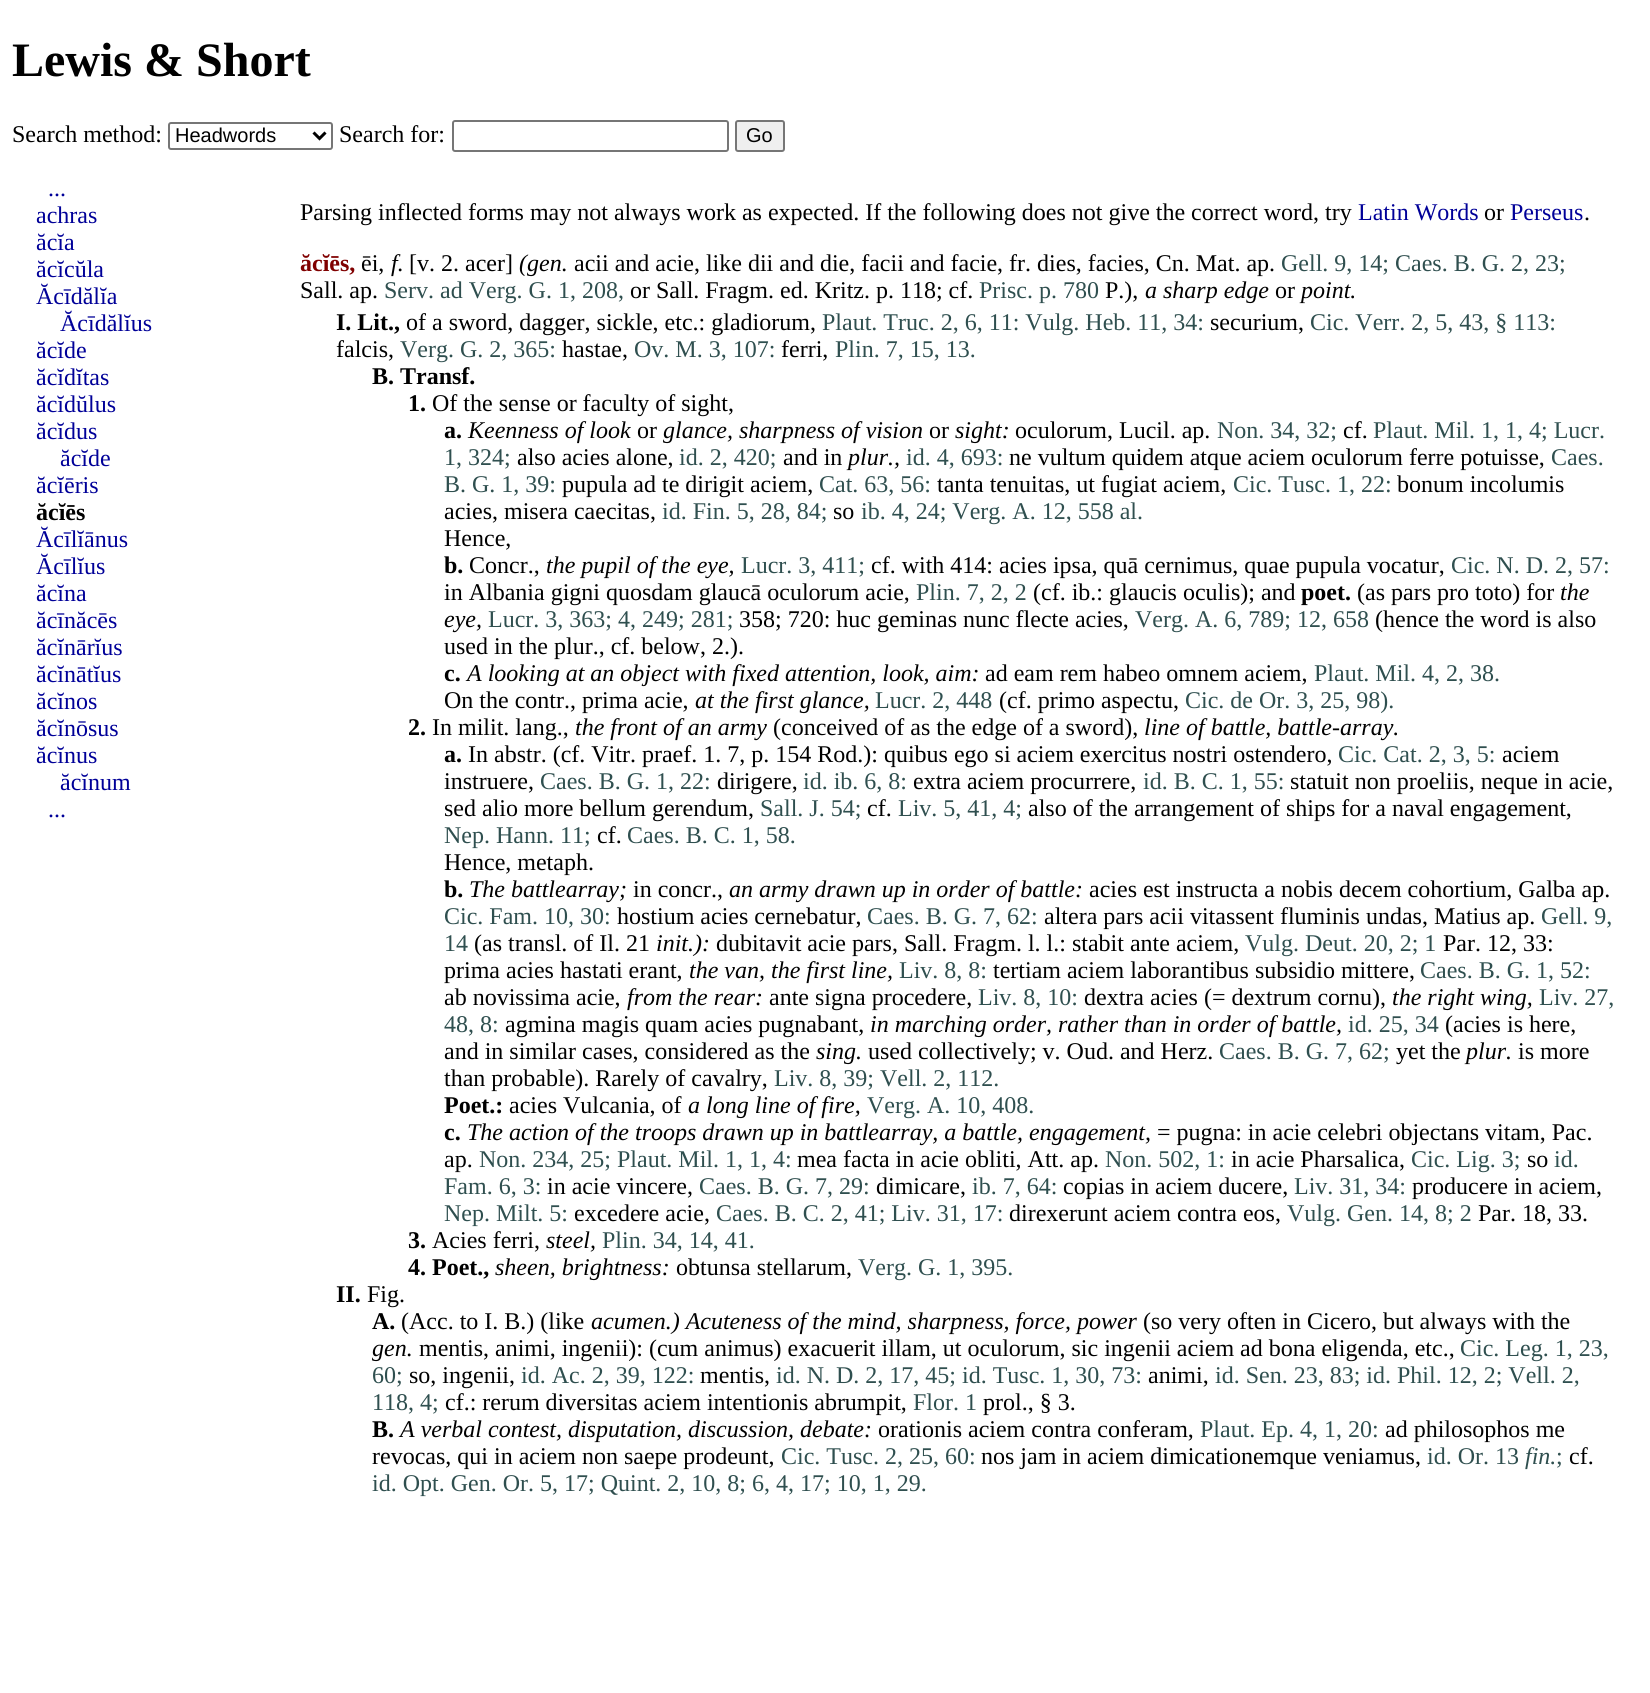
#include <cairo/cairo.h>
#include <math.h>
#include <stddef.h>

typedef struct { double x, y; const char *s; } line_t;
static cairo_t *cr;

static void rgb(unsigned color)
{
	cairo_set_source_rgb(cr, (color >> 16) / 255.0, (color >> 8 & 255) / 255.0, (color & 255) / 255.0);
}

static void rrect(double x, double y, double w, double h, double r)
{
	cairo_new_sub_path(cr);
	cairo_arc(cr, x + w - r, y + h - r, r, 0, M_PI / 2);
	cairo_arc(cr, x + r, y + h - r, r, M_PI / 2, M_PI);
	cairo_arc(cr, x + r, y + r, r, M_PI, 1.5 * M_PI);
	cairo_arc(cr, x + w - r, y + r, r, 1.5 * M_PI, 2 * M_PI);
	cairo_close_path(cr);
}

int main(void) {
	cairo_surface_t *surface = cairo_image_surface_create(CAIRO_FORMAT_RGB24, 1650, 1693);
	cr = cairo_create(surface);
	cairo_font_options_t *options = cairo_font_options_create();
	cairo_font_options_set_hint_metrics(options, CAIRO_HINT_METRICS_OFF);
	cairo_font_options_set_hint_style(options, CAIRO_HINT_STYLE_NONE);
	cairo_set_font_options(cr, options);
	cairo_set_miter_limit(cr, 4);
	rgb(0xffffff);
	cairo_paint(cr);
	rrect(169, 123, 163, 26, 2);
	rgb(0x767676);
	cairo_stroke(cr);
	cairo_new_path(cr);
	cairo_move_to(cr, 313.5, 132.5);
	cairo_line_to(cr, 319.5, 138.5);
	cairo_line_to(cr, 325.5, 132.5);
	rgb(0x000000);
	cairo_set_line_width(cr, 3);
	cairo_stroke(cr);
	rrect(453, 121, 275, 30, 2);
	rgb(0x767676);
	cairo_set_line_width(cr, 2);
	cairo_stroke(cr);
	rgb(0xefefef);
	rrect(736, 121, 48, 30, 2);
	cairo_fill_preserve(cr);
	rgb(0x767676);
	cairo_stroke(cr);
	cairo_select_font_face(cr, "Liberation Serif", CAIRO_FONT_SLANT_NORMAL, CAIRO_FONT_WEIGHT_BOLD);
	cairo_set_font_size(cr, 48);
	rgb(0x000000);
	cairo_move_to(cr, 12, 76);
	cairo_show_text(cr, "Lewis & Short");
	cairo_select_font_face(cr, "Liberation Serif", CAIRO_FONT_SLANT_NORMAL, CAIRO_FONT_WEIGHT_NORMAL);
	cairo_set_font_size(cr, 24);
	cairo_move_to(cr, 12, 142);
	cairo_show_text(cr, "Search method:");
	cairo_select_font_face(cr, "Liberation Sans", CAIRO_FONT_SLANT_NORMAL, CAIRO_FONT_WEIGHT_NORMAL);
	cairo_set_font_size(cr, 20);
	cairo_move_to(cr, 175, 142);
	cairo_show_text(cr, "Headwords");
	cairo_select_font_face(cr, "Liberation Serif", CAIRO_FONT_SLANT_NORMAL, CAIRO_FONT_WEIGHT_NORMAL);
	cairo_set_font_size(cr, 24);
	cairo_move_to(cr, 339, 142);
	cairo_show_text(cr, "Search for:");
	cairo_select_font_face(cr, "Liberation Sans", CAIRO_FONT_SLANT_NORMAL, CAIRO_FONT_WEIGHT_NORMAL);
	cairo_set_font_size(cr, 20);
	cairo_move_to(cr, 746, 142);
	cairo_show_text(cr, "Go");
	cairo_select_font_face(cr, "Liberation Serif", CAIRO_FONT_SLANT_NORMAL, CAIRO_FONT_WEIGHT_NORMAL);
	cairo_set_font_size(cr, 24);
	rgb(0x000098);
	{
		static const line_t items[] = {
			{48, 196, "..."},
			{36, 223, "achras"},
			{36, 250, "ăcĭa"},
			{36, 277, "ăcĭcŭla"},
			{36, 304, "Ăcīdălĭa"},
			{60, 331, "Ăcīdălĭus"},
			{36, 358, "ăcĭde"},
			{36, 385, "ăcĭdĭtas"},
			{36, 412, "ăcĭdŭlus"},
			{36, 439, "ăcĭdus"},
			{60, 466, "ăcĭde"},
			{36, 493, "ăcĭēris"},
		};
		for (size_t i = 0; i < sizeof items / sizeof *items; i++) {
			cairo_move_to(cr, items[i].x, items[i].y);
			cairo_show_text(cr, items[i].s);
		}
	}
	cairo_select_font_face(cr, "Liberation Serif", CAIRO_FONT_SLANT_NORMAL, CAIRO_FONT_WEIGHT_BOLD);
	rgb(0x000000);
	cairo_move_to(cr, 36, 520);
	cairo_show_text(cr, "ăcĭēs");
	cairo_select_font_face(cr, "Liberation Serif", CAIRO_FONT_SLANT_NORMAL, CAIRO_FONT_WEIGHT_NORMAL);
	rgb(0x000098);
	{
		static const line_t items[] = {
			{36, 547, "Ăcīlĭānus"},
			{36, 574, "Ăcīlĭus"},
			{36, 601, "ăcĭna"},
			{36, 628, "ăcīnăcēs"},
			{36, 655, "ăcĭnārĭus"},
			{36, 682, "ăcĭnātĭus"},
			{36, 709, "ăcĭnos"},
			{36, 736, "ăcĭnōsus"},
			{36, 763, "ăcĭnus"},
			{60, 790, "ăcĭnum"},
			{48, 817, "..."},
		};
		for (size_t i = 0; i < sizeof items / sizeof *items; i++) {
			cairo_move_to(cr, items[i].x, items[i].y);
			cairo_show_text(cr, items[i].s);
		}
	}
	rgb(0x000000);
	cairo_move_to(cr, 300, 220);
	cairo_show_text(cr, "Parsing inflected forms may not always work as expected. If the following does not give the correct word, try");
	rgb(0x000098);
	cairo_move_to(cr, 1358, 220);
	cairo_show_text(cr, "Latin Words");
	rgb(0x000000);
	cairo_move_to(cr, 1484, 220);
	cairo_show_text(cr, "or");
	rgb(0x000098);
	cairo_move_to(cr, 1510, 220);
	cairo_show_text(cr, "Perseus");
	rgb(0x000000);
	cairo_move_to(cr, 1584, 220);
	cairo_show_text(cr, ".");
	cairo_select_font_face(cr, "Liberation Serif", CAIRO_FONT_SLANT_NORMAL, CAIRO_FONT_WEIGHT_BOLD);
	rgb(0x800000);
	cairo_move_to(cr, 300, 271);
	cairo_show_text(cr, "ăcĭēs,");
	cairo_select_font_face(cr, "Liberation Serif", CAIRO_FONT_SLANT_NORMAL, CAIRO_FONT_WEIGHT_NORMAL);
	rgb(0x000000);
	cairo_move_to(cr, 361, 271);
	cairo_show_text(cr, "ēi,");
	cairo_select_font_face(cr, "Liberation Serif", CAIRO_FONT_SLANT_ITALIC, CAIRO_FONT_WEIGHT_NORMAL);
	cairo_move_to(cr, 391, 271);
	cairo_show_text(cr, "f.");
	cairo_select_font_face(cr, "Liberation Serif", CAIRO_FONT_SLANT_NORMAL, CAIRO_FONT_WEIGHT_NORMAL);
	cairo_move_to(cr, 409, 271);
	cairo_show_text(cr, "[v. 2. acer]");
	cairo_select_font_face(cr, "Liberation Serif", CAIRO_FONT_SLANT_ITALIC, CAIRO_FONT_WEIGHT_NORMAL);
	cairo_move_to(cr, 519, 271);
	cairo_show_text(cr, "(gen.");
	cairo_select_font_face(cr, "Liberation Serif", CAIRO_FONT_SLANT_NORMAL, CAIRO_FONT_WEIGHT_NORMAL);
	cairo_move_to(cr, 574, 271);
	cairo_show_text(cr, "acii and acie, like dii and die, facii and facie, fr. dies, facies, Cn. Mat. ap.");
	rgb(0x2f4f4f);
	cairo_move_to(cr, 1281, 271);
	cairo_show_text(cr, "Gell. 9, 14; Caes. B. G. 2, 23;");
	rgb(0x000000);
	cairo_move_to(cr, 300, 298);
	cairo_show_text(cr, "Sall. ap.");
	rgb(0x2f4f4f);
	cairo_move_to(cr, 384, 298);
	cairo_show_text(cr, "Serv. ad Verg. G. 1, 208,");
	rgb(0x000000);
	cairo_move_to(cr, 630, 298);
	cairo_show_text(cr, "or Sall. Fragm. ed. Kritz. p. 118; cf.");
	rgb(0x2f4f4f);
	cairo_move_to(cr, 979, 298);
	cairo_show_text(cr, "Prisc. p. 780");
	rgb(0x000000);
	cairo_move_to(cr, 1105, 298);
	cairo_show_text(cr, "P.),");
	cairo_select_font_face(cr, "Liberation Serif", CAIRO_FONT_SLANT_ITALIC, CAIRO_FONT_WEIGHT_NORMAL);
	cairo_move_to(cr, 1145, 298);
	cairo_show_text(cr, "a sharp edge");
	cairo_select_font_face(cr, "Liberation Serif", CAIRO_FONT_SLANT_NORMAL, CAIRO_FONT_WEIGHT_NORMAL);
	cairo_move_to(cr, 1275, 298);
	cairo_show_text(cr, "or");
	cairo_select_font_face(cr, "Liberation Serif", CAIRO_FONT_SLANT_ITALIC, CAIRO_FONT_WEIGHT_NORMAL);
	cairo_move_to(cr, 1301, 298);
	cairo_show_text(cr, "point.");
	cairo_select_font_face(cr, "Liberation Serif", CAIRO_FONT_SLANT_NORMAL, CAIRO_FONT_WEIGHT_BOLD);
	cairo_move_to(cr, 336, 330);
	cairo_show_text(cr, "I. Lit.,");
	cairo_select_font_face(cr, "Liberation Serif", CAIRO_FONT_SLANT_NORMAL, CAIRO_FONT_WEIGHT_NORMAL);
	cairo_move_to(cr, 406, 330);
	cairo_show_text(cr, "of a sword, dagger, sickle, etc.: gladiorum,");
	rgb(0x2f4f4f);
	cairo_move_to(cr, 822, 330);
	cairo_show_text(cr, "Plaut. Truc. 2, 6, 11: Vulg. Heb. 11, 34:");
	rgb(0x000000);
	cairo_move_to(cr, 1210, 330);
	cairo_show_text(cr, "securium,");
	rgb(0x2f4f4f);
	cairo_move_to(cr, 1310, 330);
	cairo_show_text(cr, "Cic. Verr. 2, 5, 43, § 113:");
	rgb(0x000000);
	cairo_move_to(cr, 336, 357);
	cairo_show_text(cr, "falcis,");
	rgb(0x2f4f4f);
	cairo_move_to(cr, 400, 357);
	cairo_show_text(cr, "Verg. G. 2, 365:");
	rgb(0x000000);
	cairo_move_to(cr, 562, 357);
	cairo_show_text(cr, "hastae,");
	rgb(0x2f4f4f);
	cairo_move_to(cr, 634, 357);
	cairo_show_text(cr, "Ov. M. 3, 107:");
	rgb(0x000000);
	cairo_move_to(cr, 781, 357);
	cairo_show_text(cr, "ferri,");
	rgb(0x2f4f4f);
	cairo_move_to(cr, 835, 357);
	cairo_show_text(cr, "Plin. 7, 15, 13.");
	cairo_select_font_face(cr, "Liberation Serif", CAIRO_FONT_SLANT_NORMAL, CAIRO_FONT_WEIGHT_BOLD);
	rgb(0x000000);
	cairo_move_to(cr, 372, 384);
	cairo_show_text(cr, "B. Transf.");
	cairo_move_to(cr, 408, 411);
	cairo_show_text(cr, "1.");
	cairo_select_font_face(cr, "Liberation Serif", CAIRO_FONT_SLANT_NORMAL, CAIRO_FONT_WEIGHT_NORMAL);
	cairo_move_to(cr, 432, 411);
	cairo_show_text(cr, "Of the sense or faculty of sight,");
	cairo_select_font_face(cr, "Liberation Serif", CAIRO_FONT_SLANT_NORMAL, CAIRO_FONT_WEIGHT_BOLD);
	cairo_move_to(cr, 444, 438);
	cairo_show_text(cr, "a.");
	cairo_select_font_face(cr, "Liberation Serif", CAIRO_FONT_SLANT_ITALIC, CAIRO_FONT_WEIGHT_NORMAL);
	cairo_move_to(cr, 468, 438);
	cairo_show_text(cr, "Keenness of look");
	cairo_select_font_face(cr, "Liberation Serif", CAIRO_FONT_SLANT_NORMAL, CAIRO_FONT_WEIGHT_NORMAL);
	cairo_move_to(cr, 637, 438);
	cairo_show_text(cr, "or");
	cairo_select_font_face(cr, "Liberation Serif", CAIRO_FONT_SLANT_ITALIC, CAIRO_FONT_WEIGHT_NORMAL);
	cairo_move_to(cr, 663, 438);
	cairo_show_text(cr, "glance, sharpness of vision");
	cairo_select_font_face(cr, "Liberation Serif", CAIRO_FONT_SLANT_NORMAL, CAIRO_FONT_WEIGHT_NORMAL);
	cairo_move_to(cr, 929, 438);
	cairo_show_text(cr, "or");
	cairo_select_font_face(cr, "Liberation Serif", CAIRO_FONT_SLANT_ITALIC, CAIRO_FONT_WEIGHT_NORMAL);
	cairo_move_to(cr, 955, 438);
	cairo_show_text(cr, "sight:");
	cairo_select_font_face(cr, "Liberation Serif", CAIRO_FONT_SLANT_NORMAL, CAIRO_FONT_WEIGHT_NORMAL);
	cairo_move_to(cr, 1015, 438);
	cairo_show_text(cr, "oculorum, Lucil. ap.");
	rgb(0x2f4f4f);
	cairo_move_to(cr, 1217, 438);
	cairo_show_text(cr, "Non. 34, 32;");
	rgb(0x000000);
	cairo_move_to(cr, 1343, 438);
	cairo_show_text(cr, "cf.");
	rgb(0x2f4f4f);
	cairo_move_to(cr, 1373, 438);
	cairo_show_text(cr, "Plaut. Mil. 1, 1, 4; Lucr.");
	cairo_move_to(cr, 444, 465);
	cairo_show_text(cr, "1, 324;");
	rgb(0x000000);
	cairo_move_to(cr, 517, 465);
	cairo_show_text(cr, "also acies alone,");
	rgb(0x2f4f4f);
	cairo_move_to(cr, 679, 465);
	cairo_show_text(cr, "id. 2, 420;");
	rgb(0x000000);
	cairo_move_to(cr, 783, 465);
	cairo_show_text(cr, "and in");
	cairo_select_font_face(cr, "Liberation Serif", CAIRO_FONT_SLANT_ITALIC, CAIRO_FONT_WEIGHT_NORMAL);
	cairo_move_to(cr, 848, 465);
	cairo_show_text(cr, "plur.,");
	cairo_select_font_face(cr, "Liberation Serif", CAIRO_FONT_SLANT_NORMAL, CAIRO_FONT_WEIGHT_NORMAL);
	rgb(0x2f4f4f);
	cairo_move_to(cr, 906, 465);
	cairo_show_text(cr, "id. 4, 693:");
	rgb(0x000000);
	cairo_move_to(cr, 1009, 465);
	cairo_show_text(cr, "ne vultum quidem atque aciem oculorum ferre potuisse,");
	rgb(0x2f4f4f);
	cairo_move_to(cr, 1551, 465);
	cairo_show_text(cr, "Caes.");
	cairo_move_to(cr, 444, 492);
	cairo_show_text(cr, "B. G. 1, 39:");
	rgb(0x000000);
	cairo_move_to(cr, 562, 492);
	cairo_show_text(cr, "pupula ad te dirigit aciem,");
	rgb(0x2f4f4f);
	cairo_move_to(cr, 819, 492);
	cairo_show_text(cr, "Cat. 63, 56:");
	rgb(0x000000);
	cairo_move_to(cr, 937, 492);
	cairo_show_text(cr, "tanta tenuitas, ut fugiat aciem,");
	rgb(0x2f4f4f);
	cairo_move_to(cr, 1233, 492);
	cairo_show_text(cr, "Cic. Tusc. 1, 22:");
	rgb(0x000000);
	cairo_move_to(cr, 1397, 492);
	cairo_show_text(cr, "bonum incolumis");
	cairo_move_to(cr, 444, 519);
	cairo_show_text(cr, "acies, misera caecitas,");
	rgb(0x2f4f4f);
	cairo_move_to(cr, 662, 519);
	cairo_show_text(cr, "id. Fin. 5, 28, 84;");
	rgb(0x000000);
	cairo_move_to(cr, 833, 519);
	cairo_show_text(cr, "so");
	rgb(0x2f4f4f);
	cairo_move_to(cr, 861, 519);
	cairo_show_text(cr, "ib. 4, 24; Verg. A. 12, 558 al.");
	rgb(0x000000);
	cairo_move_to(cr, 444, 546);
	cairo_show_text(cr, "Hence,");
	cairo_select_font_face(cr, "Liberation Serif", CAIRO_FONT_SLANT_NORMAL, CAIRO_FONT_WEIGHT_BOLD);
	cairo_move_to(cr, 444, 573);
	cairo_show_text(cr, "b.");
	cairo_select_font_face(cr, "Liberation Serif", CAIRO_FONT_SLANT_NORMAL, CAIRO_FONT_WEIGHT_NORMAL);
	cairo_move_to(cr, 469, 573);
	cairo_show_text(cr, "Concr.,");
	cairo_select_font_face(cr, "Liberation Serif", CAIRO_FONT_SLANT_ITALIC, CAIRO_FONT_WEIGHT_NORMAL);
	cairo_move_to(cr, 546, 573);
	cairo_show_text(cr, "the pupil of the eye,");
	cairo_select_font_face(cr, "Liberation Serif", CAIRO_FONT_SLANT_NORMAL, CAIRO_FONT_WEIGHT_NORMAL);
	rgb(0x2f4f4f);
	cairo_move_to(cr, 741, 573);
	cairo_show_text(cr, "Lucr. 3, 411;");
	rgb(0x000000);
	cairo_move_to(cr, 871, 573);
	cairo_show_text(cr, "cf. with 414: acies ipsa, quā cernimus, quae pupula vocatur,");
	rgb(0x2f4f4f);
	cairo_move_to(cr, 1451, 573);
	cairo_show_text(cr, "Cic. N. D. 2, 57:");
	rgb(0x000000);
	cairo_move_to(cr, 444, 600);
	cairo_show_text(cr, "in Albania gigni quosdam glaucā oculorum acie,");
	rgb(0x2f4f4f);
	cairo_move_to(cr, 916, 600);
	cairo_show_text(cr, "Plin. 7, 2, 2");
	rgb(0x000000);
	cairo_move_to(cr, 1033, 600);
	cairo_show_text(cr, "(cf. ib.: glaucis oculis); and");
	cairo_select_font_face(cr, "Liberation Serif", CAIRO_FONT_SLANT_NORMAL, CAIRO_FONT_WEIGHT_BOLD);
	cairo_move_to(cr, 1301, 600);
	cairo_show_text(cr, "poet.");
	cairo_select_font_face(cr, "Liberation Serif", CAIRO_FONT_SLANT_NORMAL, CAIRO_FONT_WEIGHT_NORMAL);
	cairo_move_to(cr, 1357, 600);
	cairo_show_text(cr, "(as pars pro toto) for");
	cairo_select_font_face(cr, "Liberation Serif", CAIRO_FONT_SLANT_ITALIC, CAIRO_FONT_WEIGHT_NORMAL);
	cairo_move_to(cr, 1560, 600);
	cairo_show_text(cr, "the");
	cairo_move_to(cr, 444, 627);
	cairo_show_text(cr, "eye,");
	cairo_select_font_face(cr, "Liberation Serif", CAIRO_FONT_SLANT_NORMAL, CAIRO_FONT_WEIGHT_NORMAL);
	rgb(0x2f4f4f);
	cairo_move_to(cr, 488, 627);
	cairo_show_text(cr, "Lucr. 3, 363; 4, 249; 281;");
	rgb(0x000000);
	cairo_move_to(cr, 739, 627);
	cairo_show_text(cr, "358; 720: huc geminas nunc flecte acies,");
	rgb(0x2f4f4f);
	cairo_move_to(cr, 1135, 627);
	cairo_show_text(cr, "Verg. A. 6, 789; 12, 658");
	rgb(0x000000);
	cairo_move_to(cr, 1375, 627);
	cairo_show_text(cr, "(hence the word is also");
	cairo_move_to(cr, 444, 654);
	cairo_show_text(cr, "used in the plur., cf. below, 2.).");
	cairo_select_font_face(cr, "Liberation Serif", CAIRO_FONT_SLANT_NORMAL, CAIRO_FONT_WEIGHT_BOLD);
	cairo_move_to(cr, 444, 681);
	cairo_show_text(cr, "c.");
	cairo_select_font_face(cr, "Liberation Serif", CAIRO_FONT_SLANT_ITALIC, CAIRO_FONT_WEIGHT_NORMAL);
	cairo_move_to(cr, 467, 681);
	cairo_show_text(cr, "A looking at an object with fixed attention, look, aim:");
	cairo_select_font_face(cr, "Liberation Serif", CAIRO_FONT_SLANT_NORMAL, CAIRO_FONT_WEIGHT_NORMAL);
	cairo_move_to(cr, 985, 681);
	cairo_show_text(cr, "ad eam rem habeo omnem aciem,");
	rgb(0x2f4f4f);
	cairo_move_to(cr, 1314, 681);
	cairo_show_text(cr, "Plaut. Mil. 4, 2, 38.");
	rgb(0x000000);
	cairo_move_to(cr, 444, 708);
	cairo_show_text(cr, "On the contr., prima acie,");
	cairo_select_font_face(cr, "Liberation Serif", CAIRO_FONT_SLANT_ITALIC, CAIRO_FONT_WEIGHT_NORMAL);
	cairo_move_to(cr, 695, 708);
	cairo_show_text(cr, "at the first glance,");
	cairo_select_font_face(cr, "Liberation Serif", CAIRO_FONT_SLANT_NORMAL, CAIRO_FONT_WEIGHT_NORMAL);
	rgb(0x2f4f4f);
	cairo_move_to(cr, 875, 708);
	cairo_show_text(cr, "Lucr. 2, 448");
	rgb(0x000000);
	cairo_move_to(cr, 999, 708);
	cairo_show_text(cr, "(cf. primo aspectu,");
	rgb(0x2f4f4f);
	cairo_move_to(cr, 1185, 708);
	cairo_show_text(cr, "Cic. de Or. 3, 25, 98).");
	cairo_select_font_face(cr, "Liberation Serif", CAIRO_FONT_SLANT_NORMAL, CAIRO_FONT_WEIGHT_BOLD);
	rgb(0x000000);
	cairo_move_to(cr, 408, 735);
	cairo_show_text(cr, "2.");
	cairo_select_font_face(cr, "Liberation Serif", CAIRO_FONT_SLANT_NORMAL, CAIRO_FONT_WEIGHT_NORMAL);
	cairo_move_to(cr, 432, 735);
	cairo_show_text(cr, "In milit. lang.,");
	cairo_select_font_face(cr, "Liberation Serif", CAIRO_FONT_SLANT_ITALIC, CAIRO_FONT_WEIGHT_NORMAL);
	cairo_move_to(cr, 575, 735);
	cairo_show_text(cr, "the front of an army");
	cairo_select_font_face(cr, "Liberation Serif", CAIRO_FONT_SLANT_NORMAL, CAIRO_FONT_WEIGHT_NORMAL);
	cairo_move_to(cr, 773, 735);
	cairo_show_text(cr, "(conceived of as the edge of a sword),");
	cairo_select_font_face(cr, "Liberation Serif", CAIRO_FONT_SLANT_ITALIC, CAIRO_FONT_WEIGHT_NORMAL);
	cairo_move_to(cr, 1144, 735);
	cairo_show_text(cr, "line of battle, battle-array.");
	cairo_select_font_face(cr, "Liberation Serif", CAIRO_FONT_SLANT_NORMAL, CAIRO_FONT_WEIGHT_BOLD);
	cairo_move_to(cr, 444, 762);
	cairo_show_text(cr, "a.");
	cairo_select_font_face(cr, "Liberation Serif", CAIRO_FONT_SLANT_NORMAL, CAIRO_FONT_WEIGHT_NORMAL);
	cairo_move_to(cr, 468, 762);
	cairo_show_text(cr, "In abstr. (cf. Vitr. praef. 1. 7, p. 154 Rod.): quibus ego si aciem exercitus nostri ostendero,");
	rgb(0x2f4f4f);
	cairo_move_to(cr, 1338, 762);
	cairo_show_text(cr, "Cic. Cat. 2, 3, 5:");
	rgb(0x000000);
	cairo_move_to(cr, 1502, 762);
	cairo_show_text(cr, "aciem");
	cairo_move_to(cr, 444, 789);
	cairo_show_text(cr, "instruere,");
	rgb(0x2f4f4f);
	cairo_move_to(cr, 540, 789);
	cairo_show_text(cr, "Caes. B. G. 1, 22:");
	rgb(0x000000);
	cairo_move_to(cr, 717, 789);
	cairo_show_text(cr, "dirigere,");
	rgb(0x2f4f4f);
	cairo_move_to(cr, 803, 789);
	cairo_show_text(cr, "id. ib. 6, 8:");
	rgb(0x000000);
	cairo_move_to(cr, 913, 789);
	cairo_show_text(cr, "extra aciem procurrere,");
	rgb(0x2f4f4f);
	cairo_move_to(cr, 1143, 789);
	cairo_show_text(cr, "id. B. C. 1, 55:");
	rgb(0x000000);
	cairo_move_to(cr, 1290, 789);
	cairo_show_text(cr, "statuit non proeliis, neque in acie,");
	cairo_move_to(cr, 444, 816);
	cairo_show_text(cr, "sed alio more bellum gerendum,");
	rgb(0x2f4f4f);
	cairo_move_to(cr, 760, 816);
	cairo_show_text(cr, "Sall. J. 54;");
	rgb(0x000000);
	cairo_move_to(cr, 867, 816);
	cairo_show_text(cr, "cf.");
	rgb(0x2f4f4f);
	cairo_move_to(cr, 898, 816);
	cairo_show_text(cr, "Liv. 5, 41, 4;");
	rgb(0x000000);
	cairo_move_to(cr, 1028, 816);
	cairo_show_text(cr, "also of the arrangement of ships for a naval engagement,");
	rgb(0x2f4f4f);
	cairo_move_to(cr, 444, 843);
	cairo_show_text(cr, "Nep. Hann. 11;");
	rgb(0x000000);
	cairo_move_to(cr, 597, 843);
	cairo_show_text(cr, "cf.");
	rgb(0x2f4f4f);
	cairo_move_to(cr, 627, 843);
	cairo_show_text(cr, "Caes. B. C. 1, 58.");
	rgb(0x000000);
	cairo_move_to(cr, 444, 870);
	cairo_show_text(cr, "Hence, metaph.");
	cairo_select_font_face(cr, "Liberation Serif", CAIRO_FONT_SLANT_NORMAL, CAIRO_FONT_WEIGHT_BOLD);
	cairo_move_to(cr, 444, 897);
	cairo_show_text(cr, "b.");
	cairo_select_font_face(cr, "Liberation Serif", CAIRO_FONT_SLANT_ITALIC, CAIRO_FONT_WEIGHT_NORMAL);
	cairo_move_to(cr, 469, 897);
	cairo_show_text(cr, "The battlearray;");
	cairo_select_font_face(cr, "Liberation Serif", CAIRO_FONT_SLANT_NORMAL, CAIRO_FONT_WEIGHT_NORMAL);
	cairo_move_to(cr, 633, 897);
	cairo_show_text(cr, "in concr.,");
	cairo_select_font_face(cr, "Liberation Serif", CAIRO_FONT_SLANT_ITALIC, CAIRO_FONT_WEIGHT_NORMAL);
	cairo_move_to(cr, 729, 897);
	cairo_show_text(cr, "an army drawn up in order of battle:");
	cairo_select_font_face(cr, "Liberation Serif", CAIRO_FONT_SLANT_NORMAL, CAIRO_FONT_WEIGHT_NORMAL);
	cairo_move_to(cr, 1089, 897);
	cairo_show_text(cr, "acies est instructa a nobis decem cohortium, Galba ap.");
	rgb(0x2f4f4f);
	cairo_move_to(cr, 444, 924);
	cairo_show_text(cr, "Cic. Fam. 10, 30:");
	rgb(0x000000);
	cairo_move_to(cr, 617, 924);
	cairo_show_text(cr, "hostium acies cernebatur,");
	rgb(0x2f4f4f);
	cairo_move_to(cr, 867, 924);
	cairo_show_text(cr, "Caes. B. G. 7, 62:");
	rgb(0x000000);
	cairo_move_to(cr, 1044, 924);
	cairo_show_text(cr, "altera pars acii vitassent fluminis undas, Matius ap.");
	rgb(0x2f4f4f);
	cairo_move_to(cr, 1541, 924);
	cairo_show_text(cr, "Gell. 9,");
	cairo_move_to(cr, 444, 951);
	cairo_show_text(cr, "14");
	rgb(0x000000);
	cairo_move_to(cr, 474, 951);
	cairo_show_text(cr, "(as transl. of Il. 21");
	cairo_select_font_face(cr, "Liberation Serif", CAIRO_FONT_SLANT_ITALIC, CAIRO_FONT_WEIGHT_NORMAL);
	cairo_move_to(cr, 656, 951);
	cairo_show_text(cr, "init.):");
	cairo_select_font_face(cr, "Liberation Serif", CAIRO_FONT_SLANT_NORMAL, CAIRO_FONT_WEIGHT_NORMAL);
	cairo_move_to(cr, 716, 951);
	cairo_show_text(cr, "dubitavit acie pars, Sall. Fragm. l. l.: stabit ante aciem,");
	rgb(0x2f4f4f);
	cairo_move_to(cr, 1245, 951);
	cairo_show_text(cr, "Vulg. Deut. 20, 2; 1");
	rgb(0x000000);
	cairo_move_to(cr, 1443, 951);
	cairo_show_text(cr, "Par. 12, 33:");
	cairo_move_to(cr, 444, 978);
	cairo_show_text(cr, "prima acies hastati erant,");
	cairo_select_font_face(cr, "Liberation Serif", CAIRO_FONT_SLANT_ITALIC, CAIRO_FONT_WEIGHT_NORMAL);
	cairo_move_to(cr, 689, 978);
	cairo_show_text(cr, "the van, the first line,");
	cairo_select_font_face(cr, "Liberation Serif", CAIRO_FONT_SLANT_NORMAL, CAIRO_FONT_WEIGHT_NORMAL);
	rgb(0x2f4f4f);
	cairo_move_to(cr, 899, 978);
	cairo_show_text(cr, "Liv. 8, 8:");
	rgb(0x000000);
	cairo_move_to(cr, 993, 978);
	cairo_show_text(cr, "tertiam aciem laborantibus subsidio mittere,");
	rgb(0x2f4f4f);
	cairo_move_to(cr, 1420, 978);
	cairo_show_text(cr, "Caes. B. G. 1, 52:");
	rgb(0x000000);
	cairo_move_to(cr, 444, 1005);
	cairo_show_text(cr, "ab novissima acie,");
	cairo_select_font_face(cr, "Liberation Serif", CAIRO_FONT_SLANT_ITALIC, CAIRO_FONT_WEIGHT_NORMAL);
	cairo_move_to(cr, 627, 1005);
	cairo_show_text(cr, "from the rear:");
	cairo_select_font_face(cr, "Liberation Serif", CAIRO_FONT_SLANT_NORMAL, CAIRO_FONT_WEIGHT_NORMAL);
	cairo_move_to(cr, 769, 1005);
	cairo_show_text(cr, "ante signa procedere,");
	rgb(0x2f4f4f);
	cairo_move_to(cr, 978, 1005);
	cairo_show_text(cr, "Liv. 8, 10:");
	rgb(0x000000);
	cairo_move_to(cr, 1084, 1005);
	cairo_show_text(cr, "dextra acies (= dextrum cornu),");
	cairo_select_font_face(cr, "Liberation Serif", CAIRO_FONT_SLANT_ITALIC, CAIRO_FONT_WEIGHT_NORMAL);
	cairo_move_to(cr, 1392, 1005);
	cairo_show_text(cr, "the right wing,");
	cairo_select_font_face(cr, "Liberation Serif", CAIRO_FONT_SLANT_NORMAL, CAIRO_FONT_WEIGHT_NORMAL);
	rgb(0x2f4f4f);
	cairo_move_to(cr, 1539, 1005);
	cairo_show_text(cr, "Liv. 27,");
	cairo_move_to(cr, 444, 1032);
	cairo_show_text(cr, "48, 8:");
	rgb(0x000000);
	cairo_move_to(cr, 505, 1032);
	cairo_show_text(cr, "agmina magis quam acies pugnabant,");
	cairo_select_font_face(cr, "Liberation Serif", CAIRO_FONT_SLANT_ITALIC, CAIRO_FONT_WEIGHT_NORMAL);
	cairo_move_to(cr, 870, 1032);
	cairo_show_text(cr, "in marching order, rather than in order of battle,");
	cairo_select_font_face(cr, "Liberation Serif", CAIRO_FONT_SLANT_NORMAL, CAIRO_FONT_WEIGHT_NORMAL);
	rgb(0x2f4f4f);
	cairo_move_to(cr, 1348, 1032);
	cairo_show_text(cr, "id. 25, 34");
	rgb(0x000000);
	cairo_move_to(cr, 1445, 1032);
	cairo_show_text(cr, "(acies is here,");
	cairo_move_to(cr, 444, 1059);
	cairo_show_text(cr, "and in similar cases, considered as the");
	cairo_select_font_face(cr, "Liberation Serif", CAIRO_FONT_SLANT_ITALIC, CAIRO_FONT_WEIGHT_NORMAL);
	cairo_move_to(cr, 816, 1059);
	cairo_show_text(cr, "sing.");
	cairo_select_font_face(cr, "Liberation Serif", CAIRO_FONT_SLANT_NORMAL, CAIRO_FONT_WEIGHT_NORMAL);
	cairo_move_to(cr, 868, 1059);
	cairo_show_text(cr, "used collectively; v. Oud. and Herz.");
	rgb(0x2f4f4f);
	cairo_move_to(cr, 1219, 1059);
	cairo_show_text(cr, "Caes. B. G. 7, 62;");
	rgb(0x000000);
	cairo_move_to(cr, 1396, 1059);
	cairo_show_text(cr, "yet the");
	cairo_select_font_face(cr, "Liberation Serif", CAIRO_FONT_SLANT_ITALIC, CAIRO_FONT_WEIGHT_NORMAL);
	cairo_move_to(cr, 1466, 1059);
	cairo_show_text(cr, "plur.");
	cairo_select_font_face(cr, "Liberation Serif", CAIRO_FONT_SLANT_NORMAL, CAIRO_FONT_WEIGHT_NORMAL);
	cairo_move_to(cr, 1518, 1059);
	cairo_show_text(cr, "is more");
	cairo_move_to(cr, 444, 1086);
	cairo_show_text(cr, "than probable). Rarely of cavalry,");
	rgb(0x2f4f4f);
	cairo_move_to(cr, 774, 1086);
	cairo_show_text(cr, "Liv. 8, 39; Vell. 2, 112.");
	cairo_select_font_face(cr, "Liberation Serif", CAIRO_FONT_SLANT_NORMAL, CAIRO_FONT_WEIGHT_BOLD);
	rgb(0x000000);
	cairo_move_to(cr, 444, 1113);
	cairo_show_text(cr, "Poet.:");
	cairo_select_font_face(cr, "Liberation Serif", CAIRO_FONT_SLANT_NORMAL, CAIRO_FONT_WEIGHT_NORMAL);
	cairo_move_to(cr, 509, 1113);
	cairo_show_text(cr, "acies Vulcania, of");
	cairo_select_font_face(cr, "Liberation Serif", CAIRO_FONT_SLANT_ITALIC, CAIRO_FONT_WEIGHT_NORMAL);
	cairo_move_to(cr, 688, 1113);
	cairo_show_text(cr, "a long line of fire,");
	cairo_select_font_face(cr, "Liberation Serif", CAIRO_FONT_SLANT_NORMAL, CAIRO_FONT_WEIGHT_NORMAL);
	rgb(0x2f4f4f);
	cairo_move_to(cr, 867, 1113);
	cairo_show_text(cr, "Verg. A. 10, 408.");
	cairo_select_font_face(cr, "Liberation Serif", CAIRO_FONT_SLANT_NORMAL, CAIRO_FONT_WEIGHT_BOLD);
	rgb(0x000000);
	cairo_move_to(cr, 444, 1140);
	cairo_show_text(cr, "c.");
	cairo_select_font_face(cr, "Liberation Serif", CAIRO_FONT_SLANT_ITALIC, CAIRO_FONT_WEIGHT_NORMAL);
	cairo_move_to(cr, 467, 1140);
	cairo_show_text(cr, "The action of the troops drawn up in battlearray, a battle, engagement,");
	cairo_select_font_face(cr, "Liberation Serif", CAIRO_FONT_SLANT_NORMAL, CAIRO_FONT_WEIGHT_NORMAL);
	cairo_move_to(cr, 1157, 1140);
	cairo_show_text(cr, "= pugna: in acie celebri objectans vitam, Pac.");
	cairo_move_to(cr, 444, 1167);
	cairo_show_text(cr, "ap.");
	rgb(0x2f4f4f);
	cairo_move_to(cr, 479, 1167);
	cairo_show_text(cr, "Non. 234, 25; Plaut. Mil. 1, 1, 4:");
	rgb(0x000000);
	cairo_move_to(cr, 797, 1167);
	cairo_show_text(cr, "mea facta in acie obliti, Att. ap.");
	rgb(0x2f4f4f);
	cairo_move_to(cr, 1105, 1167);
	cairo_show_text(cr, "Non. 502, 1:");
	rgb(0x000000);
	cairo_move_to(cr, 1231, 1167);
	cairo_show_text(cr, "in acie Pharsalica,");
	rgb(0x2f4f4f);
	cairo_move_to(cr, 1411, 1167);
	cairo_show_text(cr, "Cic. Lig. 3;");
	rgb(0x000000);
	cairo_move_to(cr, 1527, 1167);
	cairo_show_text(cr, "so");
	rgb(0x2f4f4f);
	cairo_move_to(cr, 1554, 1167);
	cairo_show_text(cr, "id.");
	cairo_move_to(cr, 444, 1194);
	cairo_show_text(cr, "Fam. 6, 3:");
	rgb(0x000000);
	cairo_move_to(cr, 547, 1194);
	cairo_show_text(cr, "in acie vincere,");
	rgb(0x2f4f4f);
	cairo_move_to(cr, 699, 1194);
	cairo_show_text(cr, "Caes. B. G. 7, 29:");
	rgb(0x000000);
	cairo_move_to(cr, 876, 1194);
	cairo_show_text(cr, "dimicare,");
	rgb(0x2f4f4f);
	cairo_move_to(cr, 972, 1194);
	cairo_show_text(cr, "ib. 7, 64:");
	rgb(0x000000);
	cairo_move_to(cr, 1063, 1194);
	cairo_show_text(cr, "copias in aciem ducere,");
	rgb(0x2f4f4f);
	cairo_move_to(cr, 1294, 1194);
	cairo_show_text(cr, "Liv. 31, 34:");
	rgb(0x000000);
	cairo_move_to(cr, 1412, 1194);
	cairo_show_text(cr, "producere in aciem,");
	rgb(0x2f4f4f);
	cairo_move_to(cr, 444, 1221);
	cairo_show_text(cr, "Nep. Milt. 5:");
	rgb(0x000000);
	cairo_move_to(cr, 574, 1221);
	cairo_show_text(cr, "excedere acie,");
	rgb(0x2f4f4f);
	cairo_move_to(cr, 716, 1221);
	cairo_show_text(cr, "Caes. B. C. 2, 41; Liv. 31, 17:");
	rgb(0x000000);
	cairo_move_to(cr, 1009, 1221);
	cairo_show_text(cr, "direxerunt aciem contra eos,");
	rgb(0x2f4f4f);
	cairo_move_to(cr, 1287, 1221);
	cairo_show_text(cr, "Vulg. Gen. 14, 8; 2");
	rgb(0x000000);
	cairo_move_to(cr, 1478, 1221);
	cairo_show_text(cr, "Par. 18, 33.");
	cairo_select_font_face(cr, "Liberation Serif", CAIRO_FONT_SLANT_NORMAL, CAIRO_FONT_WEIGHT_BOLD);
	cairo_move_to(cr, 408, 1248);
	cairo_show_text(cr, "3.");
	cairo_select_font_face(cr, "Liberation Serif", CAIRO_FONT_SLANT_NORMAL, CAIRO_FONT_WEIGHT_NORMAL);
	cairo_move_to(cr, 432, 1248);
	cairo_show_text(cr, "Acies ferri,");
	cairo_select_font_face(cr, "Liberation Serif", CAIRO_FONT_SLANT_ITALIC, CAIRO_FONT_WEIGHT_NORMAL);
	cairo_move_to(cr, 546, 1248);
	cairo_show_text(cr, "steel,");
	cairo_select_font_face(cr, "Liberation Serif", CAIRO_FONT_SLANT_NORMAL, CAIRO_FONT_WEIGHT_NORMAL);
	rgb(0x2f4f4f);
	cairo_move_to(cr, 602, 1248);
	cairo_show_text(cr, "Plin. 34, 14, 41.");
	cairo_select_font_face(cr, "Liberation Serif", CAIRO_FONT_SLANT_NORMAL, CAIRO_FONT_WEIGHT_BOLD);
	rgb(0x000000);
	cairo_move_to(cr, 408, 1275);
	cairo_show_text(cr, "4. Poet.,");
	cairo_select_font_face(cr, "Liberation Serif", CAIRO_FONT_SLANT_ITALIC, CAIRO_FONT_WEIGHT_NORMAL);
	cairo_move_to(cr, 495, 1275);
	cairo_show_text(cr, "sheen, brightness:");
	cairo_select_font_face(cr, "Liberation Serif", CAIRO_FONT_SLANT_NORMAL, CAIRO_FONT_WEIGHT_NORMAL);
	cairo_move_to(cr, 676, 1275);
	cairo_show_text(cr, "obtunsa stellarum,");
	rgb(0x2f4f4f);
	cairo_move_to(cr, 858, 1275);
	cairo_show_text(cr, "Verg. G. 1, 395.");
	cairo_select_font_face(cr, "Liberation Serif", CAIRO_FONT_SLANT_NORMAL, CAIRO_FONT_WEIGHT_BOLD);
	rgb(0x000000);
	cairo_move_to(cr, 336, 1302);
	cairo_show_text(cr, "II.");
	cairo_select_font_face(cr, "Liberation Serif", CAIRO_FONT_SLANT_NORMAL, CAIRO_FONT_WEIGHT_NORMAL);
	cairo_move_to(cr, 367, 1302);
	cairo_show_text(cr, "Fig.");
	cairo_select_font_face(cr, "Liberation Serif", CAIRO_FONT_SLANT_NORMAL, CAIRO_FONT_WEIGHT_BOLD);
	cairo_move_to(cr, 372, 1329);
	cairo_show_text(cr, "A.");
	cairo_select_font_face(cr, "Liberation Serif", CAIRO_FONT_SLANT_NORMAL, CAIRO_FONT_WEIGHT_NORMAL);
	cairo_move_to(cr, 401, 1329);
	cairo_show_text(cr, "(Acc. to I. B.) (like");
	cairo_select_font_face(cr, "Liberation Serif", CAIRO_FONT_SLANT_ITALIC, CAIRO_FONT_WEIGHT_NORMAL);
	cairo_move_to(cr, 591, 1329);
	cairo_show_text(cr, "acumen.) Acuteness of the mind, sharpness, force, power");
	cairo_select_font_face(cr, "Liberation Serif", CAIRO_FONT_SLANT_NORMAL, CAIRO_FONT_WEIGHT_NORMAL);
	cairo_move_to(cr, 1143, 1329);
	cairo_show_text(cr, "(so very often in Cicero, but always with the");
	cairo_select_font_face(cr, "Liberation Serif", CAIRO_FONT_SLANT_ITALIC, CAIRO_FONT_WEIGHT_NORMAL);
	cairo_move_to(cr, 372, 1356);
	cairo_show_text(cr, "gen.");
	cairo_select_font_face(cr, "Liberation Serif", CAIRO_FONT_SLANT_NORMAL, CAIRO_FONT_WEIGHT_NORMAL);
	cairo_move_to(cr, 419, 1356);
	cairo_show_text(cr, "mentis, animi, ingenii): (cum animus) exacuerit illam, ut oculorum, sic ingenii aciem ad bona eligenda, etc.,");
	rgb(0x2f4f4f);
	cairo_move_to(cr, 1460, 1356);
	cairo_show_text(cr, "Cic. Leg. 1, 23,");
	cairo_move_to(cr, 372, 1383);
	cairo_show_text(cr, "60;");
	rgb(0x000000);
	cairo_move_to(cr, 409, 1383);
	cairo_show_text(cr, "so, ingenii,");
	rgb(0x2f4f4f);
	cairo_move_to(cr, 521, 1383);
	cairo_show_text(cr, "id. Ac. 2, 39, 122:");
	rgb(0x000000);
	cairo_move_to(cr, 700, 1383);
	cairo_show_text(cr, "mentis,");
	rgb(0x2f4f4f);
	cairo_move_to(cr, 776, 1383);
	cairo_show_text(cr, "id. N. D. 2, 17, 45; id. Tusc. 1, 30, 73:");
	rgb(0x000000);
	cairo_move_to(cr, 1148, 1383);
	cairo_show_text(cr, "animi,");
	rgb(0x2f4f4f);
	cairo_move_to(cr, 1215, 1383);
	cairo_show_text(cr, "id. Sen. 23, 83; id. Phil. 12, 2; Vell. 2,");
	cairo_move_to(cr, 372, 1410);
	cairo_show_text(cr, "118, 4;");
	rgb(0x000000);
	cairo_move_to(cr, 445, 1410);
	cairo_show_text(cr, "cf.: rerum diversitas aciem intentionis abrumpit,");
	rgb(0x2f4f4f);
	cairo_move_to(cr, 913, 1410);
	cairo_show_text(cr, "Flor. 1");
	rgb(0x000000);
	cairo_move_to(cr, 983, 1410);
	cairo_show_text(cr, "prol., § 3.");
	cairo_select_font_face(cr, "Liberation Serif", CAIRO_FONT_SLANT_NORMAL, CAIRO_FONT_WEIGHT_BOLD);
	cairo_move_to(cr, 372, 1437);
	cairo_show_text(cr, "B.");
	cairo_select_font_face(cr, "Liberation Serif", CAIRO_FONT_SLANT_ITALIC, CAIRO_FONT_WEIGHT_NORMAL);
	cairo_move_to(cr, 400, 1437);
	cairo_show_text(cr, "A verbal contest, disputation, discussion, debate:");
	cairo_select_font_face(cr, "Liberation Serif", CAIRO_FONT_SLANT_NORMAL, CAIRO_FONT_WEIGHT_NORMAL);
	cairo_move_to(cr, 878, 1437);
	cairo_show_text(cr, "orationis aciem contra conferam,");
	rgb(0x2f4f4f);
	cairo_move_to(cr, 1200, 1437);
	cairo_show_text(cr, "Plaut. Ep. 4, 1, 20:");
	rgb(0x000000);
	cairo_move_to(cr, 1385, 1437);
	cairo_show_text(cr, "ad philosophos me");
	cairo_move_to(cr, 372, 1464);
	cairo_show_text(cr, "revocas, qui in aciem non saepe prodeunt,");
	rgb(0x2f4f4f);
	cairo_move_to(cr, 781, 1464);
	cairo_show_text(cr, "Cic. Tusc. 2, 25, 60:");
	rgb(0x000000);
	cairo_move_to(cr, 981, 1464);
	cairo_show_text(cr, "nos jam in aciem dimicationemque veniamus,");
	rgb(0x2f4f4f);
	cairo_move_to(cr, 1427, 1464);
	cairo_show_text(cr, "id. Or. 13");
	cairo_select_font_face(cr, "Liberation Serif", CAIRO_FONT_SLANT_ITALIC, CAIRO_FONT_WEIGHT_NORMAL);
	cairo_move_to(cr, 1525, 1464);
	cairo_show_text(cr, "fin.");
	cairo_select_font_face(cr, "Liberation Serif", CAIRO_FONT_SLANT_NORMAL, CAIRO_FONT_WEIGHT_NORMAL);
	cairo_move_to(cr, 1556, 1464);
	cairo_show_text(cr, ";");
	rgb(0x000000);
	cairo_move_to(cr, 1569, 1464);
	cairo_show_text(cr, "cf.");
	rgb(0x2f4f4f);
	cairo_move_to(cr, 372, 1491);
	cairo_show_text(cr, "id. Opt. Gen. Or. 5, 17; Quint. 2, 10, 8; 6, 4, 17; 10, 1, 29.");
	cairo_surface_write_to_png(surface, "page.png");
	cairo_font_options_destroy(options);
	cairo_destroy(cr);
	cairo_surface_destroy(surface);
	return 0;
}
